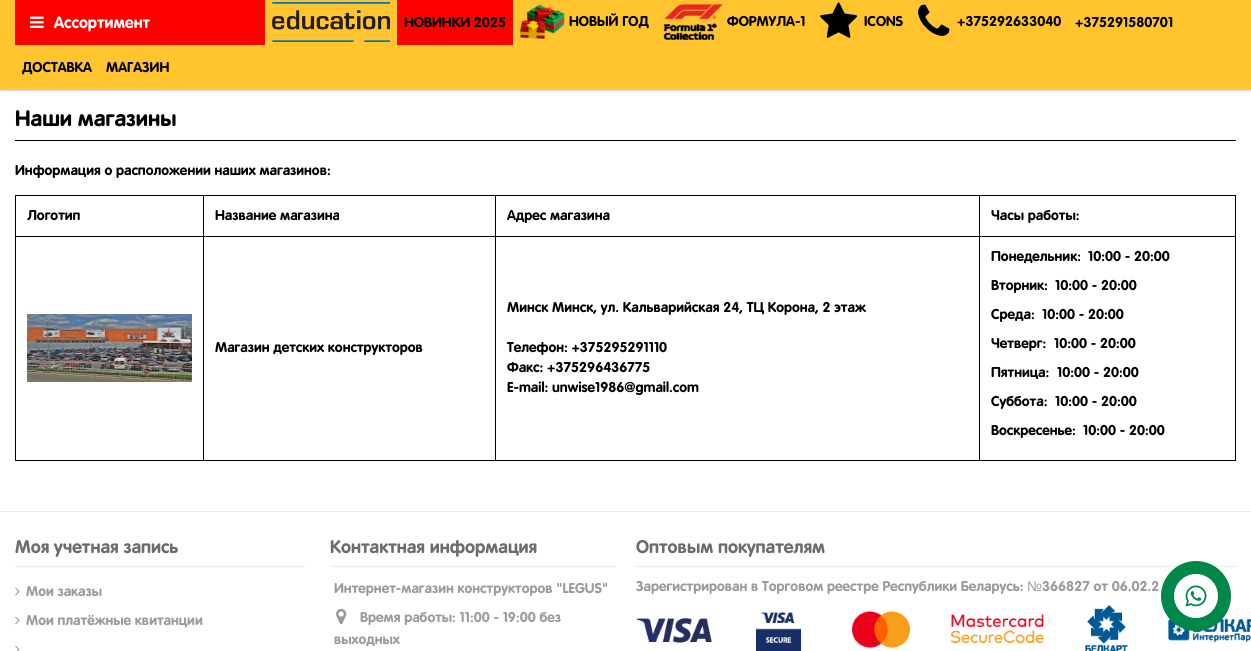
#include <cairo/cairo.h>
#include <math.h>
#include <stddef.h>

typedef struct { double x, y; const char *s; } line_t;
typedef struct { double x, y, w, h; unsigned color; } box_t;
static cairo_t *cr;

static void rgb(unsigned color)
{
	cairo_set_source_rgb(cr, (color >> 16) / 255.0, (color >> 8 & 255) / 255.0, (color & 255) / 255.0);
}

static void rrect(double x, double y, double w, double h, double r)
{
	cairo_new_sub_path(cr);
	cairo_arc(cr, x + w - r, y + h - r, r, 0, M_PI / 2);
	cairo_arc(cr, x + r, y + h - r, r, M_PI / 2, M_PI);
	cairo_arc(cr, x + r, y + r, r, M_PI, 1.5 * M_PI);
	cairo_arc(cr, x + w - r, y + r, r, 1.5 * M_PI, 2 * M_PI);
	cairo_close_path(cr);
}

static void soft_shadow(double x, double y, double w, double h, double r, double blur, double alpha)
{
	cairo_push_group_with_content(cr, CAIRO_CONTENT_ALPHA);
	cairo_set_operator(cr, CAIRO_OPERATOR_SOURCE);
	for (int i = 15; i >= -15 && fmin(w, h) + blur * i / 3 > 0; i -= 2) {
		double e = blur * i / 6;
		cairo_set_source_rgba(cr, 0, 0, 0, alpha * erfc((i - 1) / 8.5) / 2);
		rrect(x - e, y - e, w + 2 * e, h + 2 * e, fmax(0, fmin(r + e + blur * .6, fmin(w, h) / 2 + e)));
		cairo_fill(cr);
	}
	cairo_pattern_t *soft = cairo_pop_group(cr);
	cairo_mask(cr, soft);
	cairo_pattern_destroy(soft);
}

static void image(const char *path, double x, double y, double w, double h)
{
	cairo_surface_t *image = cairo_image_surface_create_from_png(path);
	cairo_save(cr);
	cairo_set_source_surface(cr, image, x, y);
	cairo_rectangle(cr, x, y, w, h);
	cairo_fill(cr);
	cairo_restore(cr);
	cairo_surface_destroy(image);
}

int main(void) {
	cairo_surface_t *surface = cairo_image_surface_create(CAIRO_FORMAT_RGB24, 1251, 651);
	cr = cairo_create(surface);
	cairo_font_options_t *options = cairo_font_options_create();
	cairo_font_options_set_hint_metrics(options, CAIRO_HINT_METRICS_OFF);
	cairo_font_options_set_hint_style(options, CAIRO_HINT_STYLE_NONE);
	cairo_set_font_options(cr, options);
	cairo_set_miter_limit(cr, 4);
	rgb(0xffffff);
	cairo_paint(cr);
	rgb(0x000000);
	soft_shadow(0, 1, 1251, 90, 0, 1, 0.15);
	rgb(0xffc42e);
	cairo_rectangle(cr, 0, 0, 1251, 90);
	cairo_fill(cr);
	image("img/1.png", 272, 2, 118, 40);
	rgb(0xff0000);
	cairo_rectangle(cr, 397, 0, 116, 45);
	cairo_fill(cr);
	image("img/2.png", 520, 4, 45, 35);
	image("img/3.png", 663, 4, 60, 36);
	image("img/4.png", 820, 2, 38, 36);
	image("img/5.png", 918, 4, 32, 32);
	cairo_rectangle(cr, 15, 0, 250, 45);
	cairo_fill(cr);
	image("img/6.png", 30, 16, 14, 12);
	{
		static const box_t items[] = {
			{15, 140, 1221, 1, 0x000000},
			{15, 195, 1221, 1, 0x000000},
			{1235, 195, 1, 266, 0x000000},
			{15, 460, 1221, 1, 0x000000},
			{15, 195, 1, 266, 0x000000},
			{979, 236, 257, 1, 0x000000},
			{979, 236, 1, 225, 0x000000},
			{495, 236, 485, 1, 0x000000},
			{495, 236, 1, 225, 0x000000},
			{203, 236, 293, 1, 0x000000},
			{203, 236, 1, 225, 0x000000},
			{15, 236, 189, 1, 0x000000},
			{203, 195, 1, 42, 0x000000},
			{495, 195, 1, 42, 0x000000},
			{979, 195, 1, 42, 0x000000},
		};
		for (size_t i = 0; i < sizeof items / sizeof *items; i++) {
			rgb(items[i].color);
			cairo_rectangle(cr, items[i].x, items[i].y, items[i].w, items[i].h);
			cairo_fill(cr);
		}
	}
	image("img/7.png", 27, 305, 165, 78);
	rgb(0xebebeb);
	cairo_rectangle(cr, 0, 511, 1251, 1);
	cairo_fill(cr);
	cairo_rectangle(cr, 15, 566, 290, 1);
	cairo_fill(cr);
	image("img/8.png", 15, 587, 5, 9);
	image("img/8.png", 15, 616, 5, 9);
	image("img/9.png", 15, 645, 5, 6);
	cairo_rectangle(cr, 330, 566, 286, 1);
	cairo_fill(cr);
	image("img/10.png", 336, 608, 11, 17);
	cairo_rectangle(cr, 636, 566, 600, 1);
	cairo_fill(cr);
	image("img/11.png", 636, 605, 615, 46);
	rgb(0x008749);
	cairo_arc(cr, 1196, 596, 35, 0, 2 * M_PI);
	cairo_fill(cr);
	rgb(0xffffff);
	cairo_arc(cr, 1196, 596, 22, 0, 2 * M_PI);
	cairo_fill(cr);
	image("img/12.png", 1185, 585, 22, 22);
	cairo_select_font_face(cr, "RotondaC", CAIRO_FONT_SLANT_NORMAL, CAIRO_FONT_WEIGHT_BOLD);
	cairo_set_font_size(cr, 14);
	rgb(0x000000);
	{
		static const line_t items[] = {
			{404, 27, "НОВИНКИ 2025"},
			{569, 26, "НОВЫЙ ГОД"},
			{727, 26, "ФОРМУЛА-1"},
			{864, 26, "ICONS"},
			{957, 26, "+375292633040"},
			{1075, 27, "+375291580701"},
			{22, 72, "ДОСТАВКА"},
			{106, 72, "МАГАЗИН"},
		};
		for (size_t i = 0; i < sizeof items / sizeof *items; i++) {
			cairo_move_to(cr, items[i].x, items[i].y);
			cairo_show_text(cr, items[i].s);
		}
	}
	cairo_set_font_size(cr, 16);
	rgb(0xffffff);
	cairo_move_to(cr, 54, 28);
	cairo_show_text(cr, "Ассортимент");
	cairo_set_font_size(cr, 22);
	rgb(0x000000);
	cairo_move_to(cr, 15, 126);
	cairo_show_text(cr, "Наши магазины");
	cairo_set_font_size(cr, 14);
	{
		static const line_t items[] = {
			{15, 175, "Информация о расположении наших магазинов:"},
			{27, 220, "Логотип"},
			{215, 220, "Название магазина"},
			{507, 220, "Адрес магазина"},
			{991, 220, "Часы работы:"},
			{215, 352, "Магазин детских конструкторов"},
			{507, 312, "Минск Минск, ул. Кальварийская 24, ТЦ Корона, 2 этаж"},
			{507, 352, "Телефон: +375295291110"},
			{507, 372, "Факс: +375296436775"},
			{507, 392, "E-mail: unwise1986@gmail.com"},
			{991, 261, "Понедельник:"},
			{1088, 261, "10:00 - 20:00"},
			{991, 290, "Вторник:"},
			{1055, 290, "10:00 - 20:00"},
			{991, 319, "Среда:"},
			{1042, 319, "10:00 - 20:00"},
			{991, 348, "Четверг:"},
			{1054, 348, "10:00 - 20:00"},
			{991, 377, "Пятница:"},
			{1057, 377, "10:00 - 20:00"},
			{991, 406, "Суббота:"},
			{1055, 406, "10:00 - 20:00"},
			{991, 435, "Воскресенье:"},
			{1083, 435, "10:00 - 20:00"},
		};
		for (size_t i = 0; i < sizeof items / sizeof *items; i++) {
			cairo_move_to(cr, items[i].x, items[i].y);
			cairo_show_text(cr, items[i].s);
		}
	}
	cairo_set_font_size(cr, 18);
	rgb(0x6c6c6c);
	cairo_move_to(cr, 15, 553);
	cairo_show_text(cr, "Моя учетная запись");
	cairo_set_font_size(cr, 14);
	rgb(0x9c9b9b);
	cairo_move_to(cr, 26, 596);
	cairo_show_text(cr, "Мои заказы");
	cairo_move_to(cr, 26, 625);
	cairo_show_text(cr, "Мои платёжные квитанции");
	cairo_set_font_size(cr, 18);
	rgb(0x6c6c6c);
	cairo_move_to(cr, 330, 553);
	cairo_show_text(cr, "Контактная информация");
	cairo_set_font_size(cr, 14);
	rgb(0x9c9b9b);
	{
		static const line_t items[] = {
			{334, 593, "Интернет-магазин конструкторов \"LEGUS\""},
			{360, 622, "Время работы: 11:00 - 19:00 без"},
			{334, 644, "выходных"},
		};
		for (size_t i = 0; i < sizeof items / sizeof *items; i++) {
			cairo_move_to(cr, items[i].x, items[i].y);
			cairo_show_text(cr, items[i].s);
		}
	}
	cairo_set_font_size(cr, 18);
	rgb(0x6c6c6c);
	cairo_move_to(cr, 636, 553);
	cairo_show_text(cr, "Оптовым покупателям");
	cairo_set_font_size(cr, 14);
	rgb(0x9c9b9b);
	cairo_move_to(cr, 636, 591);
	cairo_show_text(cr, "Зарегистрирован в Торговом реестре Республики Беларусь:");
	cairo_select_font_face(cr, "Liberation Sans", CAIRO_FONT_SLANT_NORMAL, CAIRO_FONT_WEIGHT_NORMAL);
	cairo_move_to(cr, 1027, 591);
	cairo_show_text(cr, "№");
	cairo_select_font_face(cr, "RotondaC", CAIRO_FONT_SLANT_NORMAL, CAIRO_FONT_WEIGHT_BOLD);
	cairo_move_to(cr, 1042, 591);
	cairo_show_text(cr, "366827 от 06.02.2");
	cairo_surface_write_to_png(surface, "page.png");
	cairo_font_options_destroy(options);
	cairo_destroy(cr);
	cairo_surface_destroy(surface);
	return 0;
}
